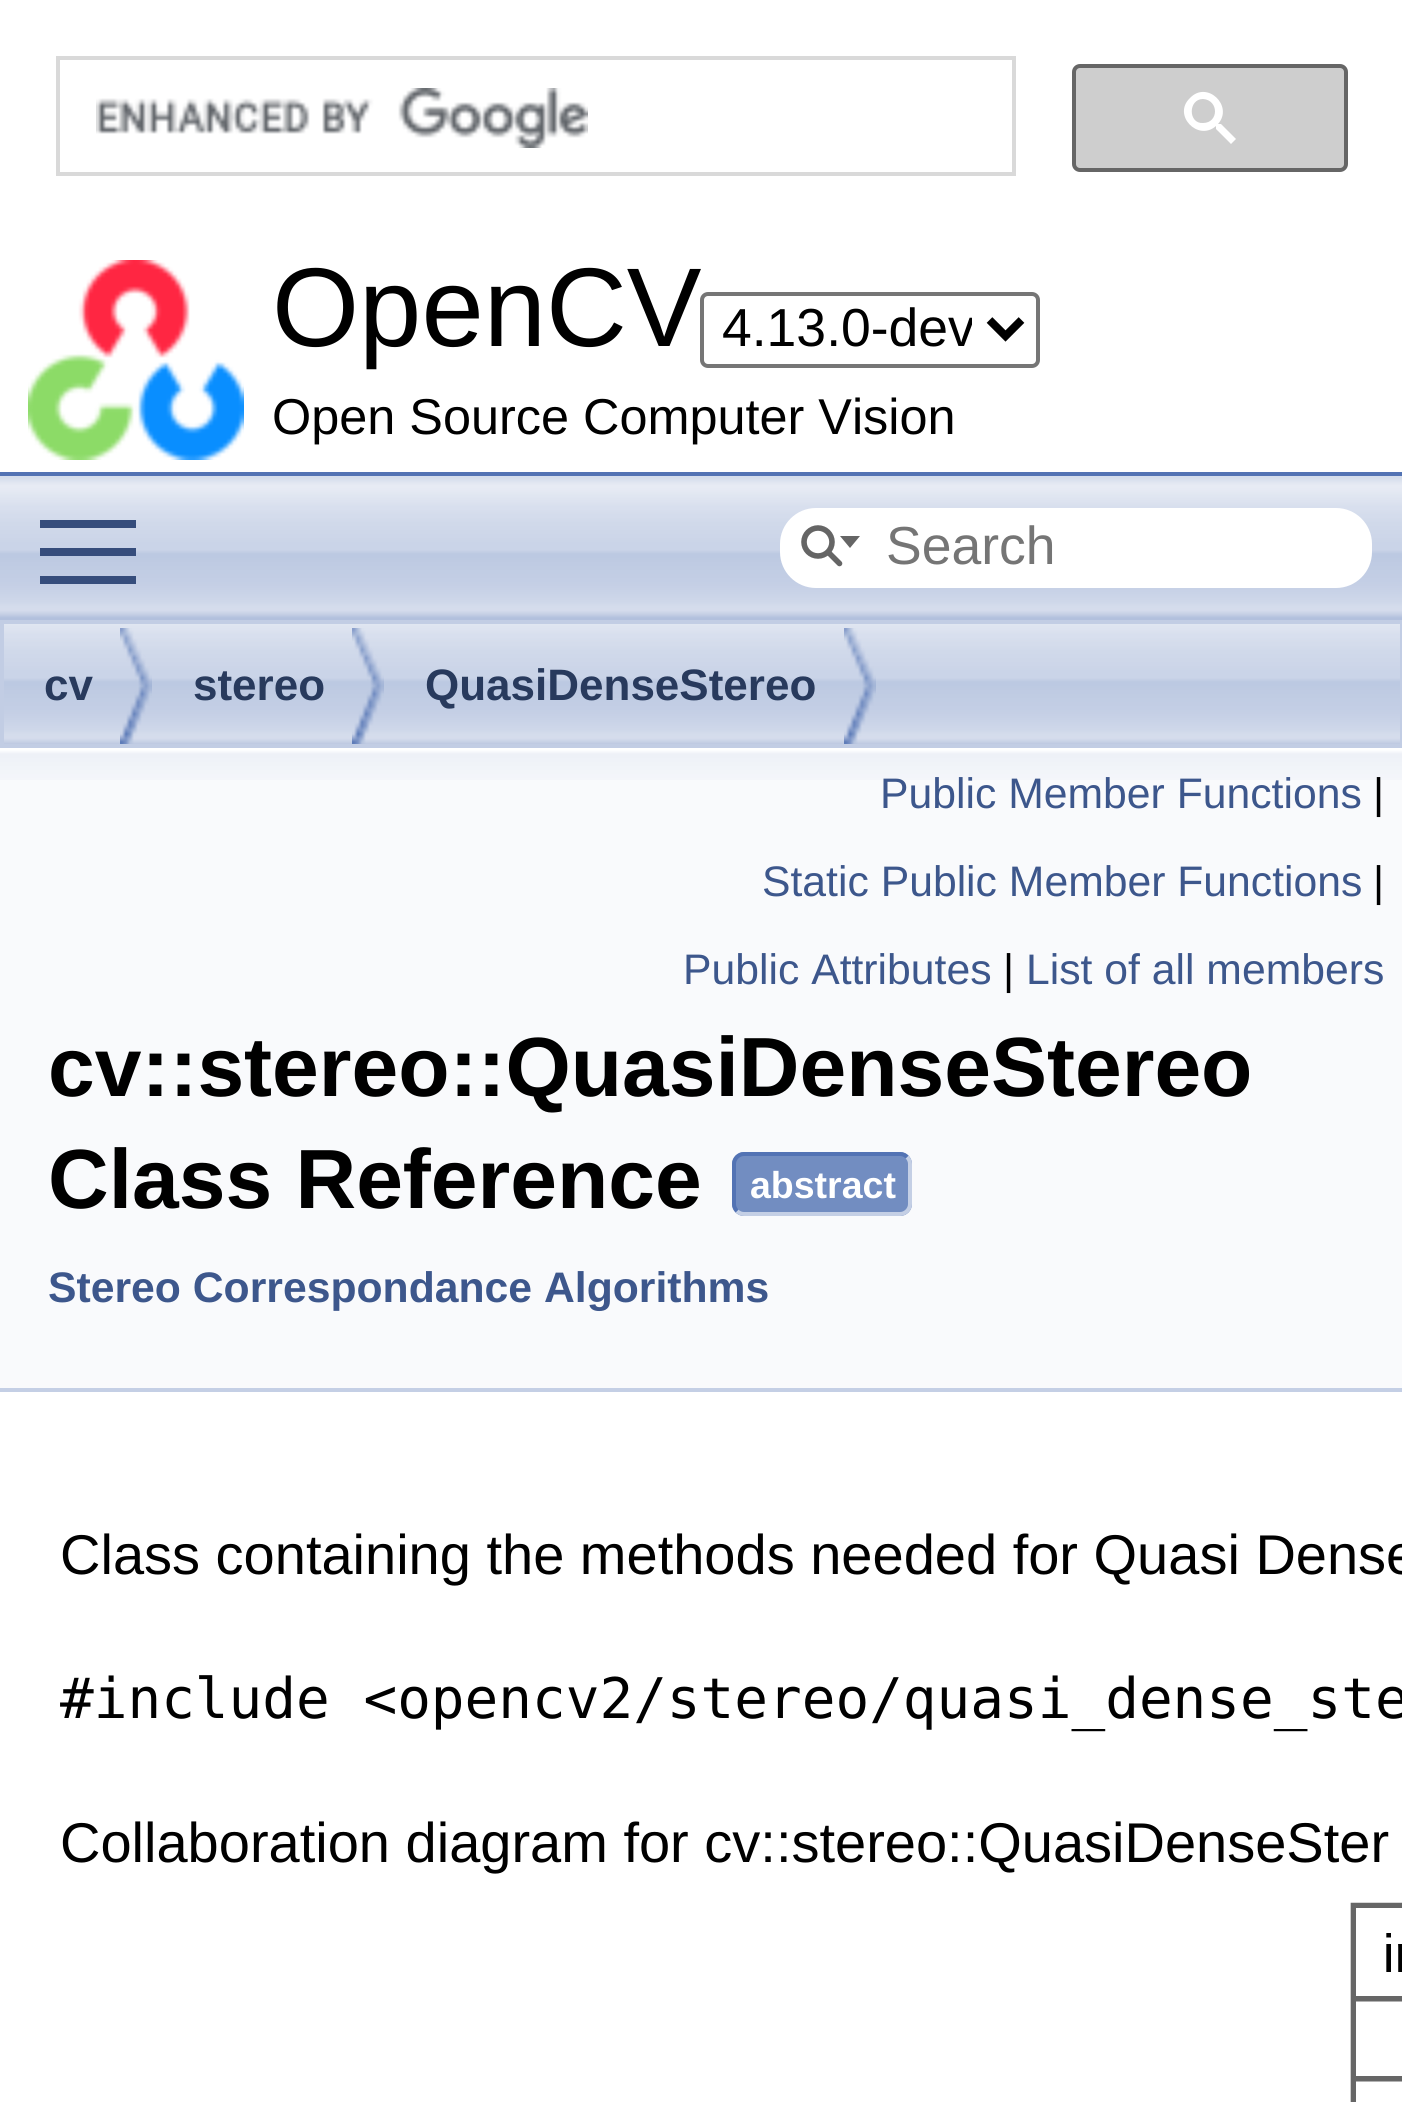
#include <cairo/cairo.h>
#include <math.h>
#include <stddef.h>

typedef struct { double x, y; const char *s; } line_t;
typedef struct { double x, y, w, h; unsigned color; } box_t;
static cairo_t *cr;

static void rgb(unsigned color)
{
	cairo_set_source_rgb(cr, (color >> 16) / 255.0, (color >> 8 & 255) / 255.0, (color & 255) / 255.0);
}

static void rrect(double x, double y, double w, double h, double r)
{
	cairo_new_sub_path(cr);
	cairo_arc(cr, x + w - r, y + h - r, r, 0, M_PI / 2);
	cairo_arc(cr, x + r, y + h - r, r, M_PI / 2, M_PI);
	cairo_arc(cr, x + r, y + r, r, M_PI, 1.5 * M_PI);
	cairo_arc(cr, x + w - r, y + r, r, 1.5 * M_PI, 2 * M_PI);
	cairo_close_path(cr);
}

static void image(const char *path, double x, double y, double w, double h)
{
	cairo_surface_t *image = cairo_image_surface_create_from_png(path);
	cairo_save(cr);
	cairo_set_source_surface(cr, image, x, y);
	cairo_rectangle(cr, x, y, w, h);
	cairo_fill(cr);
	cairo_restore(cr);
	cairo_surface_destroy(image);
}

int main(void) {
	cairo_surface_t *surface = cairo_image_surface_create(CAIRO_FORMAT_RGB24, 1402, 2102);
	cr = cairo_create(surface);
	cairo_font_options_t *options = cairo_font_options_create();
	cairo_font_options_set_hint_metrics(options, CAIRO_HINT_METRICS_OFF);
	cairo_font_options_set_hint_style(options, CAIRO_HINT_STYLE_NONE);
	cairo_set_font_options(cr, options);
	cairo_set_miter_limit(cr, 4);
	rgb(0xffffff);
	cairo_paint(cr);
	rgb(0x5373b4);
	cairo_rectangle(cr, 0, 472, 1402, 4);
	cairo_fill(cr);
	cairo_rectangle(cr, 58, 58, 956, 116);
	rgb(0xd9d9d9);
	cairo_set_line_width(cr, 4);
	cairo_stroke(cr);
	image("img/1.png", 96, 88, 492, 60);
	rgb(0xcecece);
	rrect(1074, 66, 272, 104, 6);
	cairo_fill_preserve(cr);
	rgb(0x666666);
	cairo_stroke(cr);
	rgb(0xffffff);
	cairo_new_path(cr);
	cairo_move_to(cr, 1203, 123);
	cairo_curve_to(cr, 1219, 123, 1219, 100, 1203, 99);
	cairo_curve_to(cr, 1188, 99, 1188, 124, 1203, 123);
	cairo_close_path(cr);
	cairo_move_to(cr, 1221, 124);
	cairo_line_to(cr, 1236, 139);
	cairo_line_to(cr, 1231, 144);
	cairo_line_to(cr, 1216, 129);
	cairo_line_to(cr, 1216, 126);
	cairo_curve_to(cr, 1198, 142, 1172, 115, 1190, 98);
	cairo_curve_to(cr, 1207, 80, 1234, 106, 1218, 124);
	cairo_close_path(cr);
	cairo_fill(cr);
	image("img/2.png", 28, 260, 216, 200);
	image("img/3.png", 0, 476, 1402, 144);
	{
		static const box_t items[] = {
			{40, 548, 96, 8, 0x364d7c},
			{40, 520, 96, 8, 0x364d7c},
			{40, 576, 96, 8, 0x364d7c},
		};
		for (size_t i = 0; i < sizeof items / sizeof *items; i++) {
			rgb(items[i].color);
			cairo_rectangle(cr, items[i].x, items[i].y, items[i].w, items[i].h);
			cairo_fill(cr);
		}
	}
	rgb(0xffffff);
	rrect(780, 508, 592, 80, 36);
	cairo_fill(cr);
	cairo_arc(cr, 818, 542, 14, 0, 2 * M_PI);
	rgb(0x656565);
	cairo_set_line_width(cr, 5.6);
	cairo_stroke(cr);
	cairo_new_path(cr);
	cairo_move_to(cr, 840, 536);
	cairo_line_to(cr, 850, 548);
	cairo_line_to(cr, 860, 536);
	cairo_close_path(cr);
	cairo_fill(cr);
	cairo_new_path(cr);
	cairo_move_to(cr, 828.5, 552.5);
	cairo_line_to(cr, 839.5, 563.5);
	cairo_set_line_cap(cr, CAIRO_LINE_CAP_ROUND);
	cairo_stroke(cr);
	image("img/4.png", 4, 624, 1396, 120);
	cairo_rectangle(cr, 2, 622, 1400, 124);
	rgb(0xc2cde4);
	cairo_set_line_width(cr, 4);
	cairo_set_line_cap(cr, CAIRO_LINE_CAP_BUTT);
	cairo_stroke(cr);
	image("img/5.png", 120, 628, 32, 116);
	image("img/5.png", 352, 628, 32, 116);
	image("img/5.png", 844, 628, 32, 116);
	rgb(0xf9fafc);
	cairo_rectangle(cr, 0, 780, 1402, 608);
	cairo_fill(cr);
	image("img/6.png", 0, 748, 1402, 32);
	rgb(0xc4cfe5);
	cairo_rectangle(cr, 0, 1388, 1402, 4);
	cairo_fill(cr);
	rgb(0x728dc1);
	rrect(732, 1152, 180, 64, 12);
	cairo_fill(cr);
	cairo_new_path(cr);
	cairo_move_to(cr, 907, 1157);
	cairo_curve_to(cr, 909, 1159, 910, 1161.5, 910, 1164);
	cairo_line_to(cr, 910, 1204);
	cairo_curve_to(cr, 910, 1206.5, 909, 1209, 907, 1211);
	cairo_curve_to(cr, 905, 1213, 902.5, 1214, 900, 1214);
	cairo_line_to(cr, 744, 1214);
	cairo_curve_to(cr, 741.5, 1214, 739, 1213, 737, 1211);
	rgb(0xc4cfe5);
	cairo_stroke(cr);
	cairo_new_path(cr);
	cairo_move_to(cr, 737, 1211);
	cairo_curve_to(cr, 735, 1209, 734, 1206.5, 734, 1204);
	cairo_line_to(cr, 734, 1164);
	cairo_curve_to(cr, 734, 1161.5, 735, 1159, 737, 1157);
	cairo_curve_to(cr, 739, 1155, 741.5, 1154, 744, 1154);
	cairo_line_to(cr, 900, 1154);
	cairo_curve_to(cr, 902.5, 1154, 905, 1155, 907, 1157);
	rgb(0x5373b4);
	cairo_stroke(cr);
	image("img/7.png", 1350, 1902, 52, 200);
	cairo_select_font_face(cr, "Liberation Sans", CAIRO_FONT_SLANT_NORMAL, CAIRO_FONT_WEIGHT_NORMAL);
	cairo_set_font_size(cr, 112);
	rgb(0x000000);
	cairo_move_to(cr, 272, 346);
	cairo_show_text(cr, "OpenCV");
	rrect(702, 294, 336, 72, 6);
	rgb(0x767676);
	cairo_stroke(cr);
	cairo_new_path(cr);
	cairo_move_to(cr, 989.5, 320);
	cairo_line_to(cr, 1005.5, 336);
	cairo_line_to(cr, 1021.5, 320);
	rgb(0x000000);
	cairo_set_line_width(cr, 8);
	cairo_stroke(cr);
	cairo_save(cr);
	cairo_rectangle(cr, 720, 296, 252, 68);
	cairo_clip(cr);
	cairo_set_font_size(cr, 53.5);
	cairo_move_to(cr, 722, 346);
	cairo_show_text(cr, "4.13.0-dev");
	cairo_restore(cr);
	cairo_set_font_size(cr, 50.4);
	cairo_move_to(cr, 272, 434);
	cairo_show_text(cr, "Open Source Computer Vision");
	cairo_set_font_size(cr, 53.5);
	rgb(0x757575);
	cairo_move_to(cr, 886, 564);
	cairo_show_text(cr, "Search");
	cairo_select_font_face(cr, "Liberation Sans", CAIRO_FONT_SLANT_NORMAL, CAIRO_FONT_WEIGHT_BOLD);
	cairo_set_font_size(cr, 44);
	rgb(0x283a5d);
	{
		static const line_t items[] = {
			{44, 700, "cv"},
			{193, 700, "stereo"},
			{425, 700, "QuasiDenseStereo"},
		};
		for (size_t i = 0; i < sizeof items / sizeof *items; i++) {
			cairo_move_to(cr, items[i].x, items[i].y);
			cairo_show_text(cr, items[i].s);
		}
	}
	cairo_select_font_face(cr, "Liberation Sans", CAIRO_FONT_SLANT_NORMAL, CAIRO_FONT_WEIGHT_NORMAL);
	cairo_set_font_size(cr, 42.7);
	rgb(0x3d578c);
	cairo_move_to(cr, 880, 808);
	cairo_show_text(cr, "Public Member Functions");
	rgb(0x000000);
	cairo_move_to(cr, 1373, 808);
	cairo_show_text(cr, "|");
	rgb(0x3d578c);
	cairo_move_to(cr, 762, 896);
	cairo_show_text(cr, "Static Public Member Functions");
	rgb(0x000000);
	cairo_move_to(cr, 1373, 896);
	cairo_show_text(cr, "|");
	rgb(0x3d578c);
	cairo_move_to(cr, 683, 984);
	cairo_show_text(cr, "Public Attributes");
	rgb(0x000000);
	cairo_move_to(cr, 1003, 984);
	cairo_show_text(cr, "|");
	rgb(0x3d578c);
	cairo_move_to(cr, 1026, 984);
	cairo_show_text(cr, "List of all members");
	cairo_select_font_face(cr, "Liberation Sans", CAIRO_FONT_SLANT_NORMAL, CAIRO_FONT_WEIGHT_BOLD);
	cairo_set_font_size(cr, 84);
	rgb(0x000000);
	cairo_move_to(cr, 48, 1096);
	cairo_show_text(cr, "cv::stereo::QuasiDenseStereo");
	cairo_move_to(cr, 48, 1208);
	cairo_show_text(cr, "Class Reference");
	cairo_set_font_size(cr, 37.5);
	rgb(0xffffff);
	cairo_move_to(cr, 750, 1198);
	cairo_show_text(cr, "abstract");
	cairo_set_font_size(cr, 42.7);
	rgb(0x3d578c);
	cairo_move_to(cr, 48, 1302);
	cairo_show_text(cr, "Stereo Correspondance Algorithms");
	cairo_select_font_face(cr, "Liberation Sans", CAIRO_FONT_SLANT_NORMAL, CAIRO_FONT_WEIGHT_NORMAL);
	cairo_set_font_size(cr, 56);
	rgb(0x000000);
	cairo_move_to(cr, 60, 1574);
	cairo_show_text(cr, "Class containing the methods needed for Quasi Dense");
	cairo_select_font_face(cr, "DejaVu Sans Mono", CAIRO_FONT_SLANT_NORMAL, CAIRO_FONT_WEIGHT_NORMAL);
	cairo_move_to(cr, 60, 1718);
	cairo_show_text(cr, "#include <opencv2/stereo/quasi_dense_ste");
	cairo_select_font_face(cr, "Liberation Sans", CAIRO_FONT_SLANT_NORMAL, CAIRO_FONT_WEIGHT_NORMAL);
	cairo_move_to(cr, 60, 1862);
	cairo_show_text(cr, "Collaboration diagram for cv::stereo::QuasiDenseSter");
	cairo_surface_write_to_png(surface, "page.png");
	cairo_font_options_destroy(options);
	cairo_destroy(cr);
	cairo_surface_destroy(surface);
	return 0;
}
